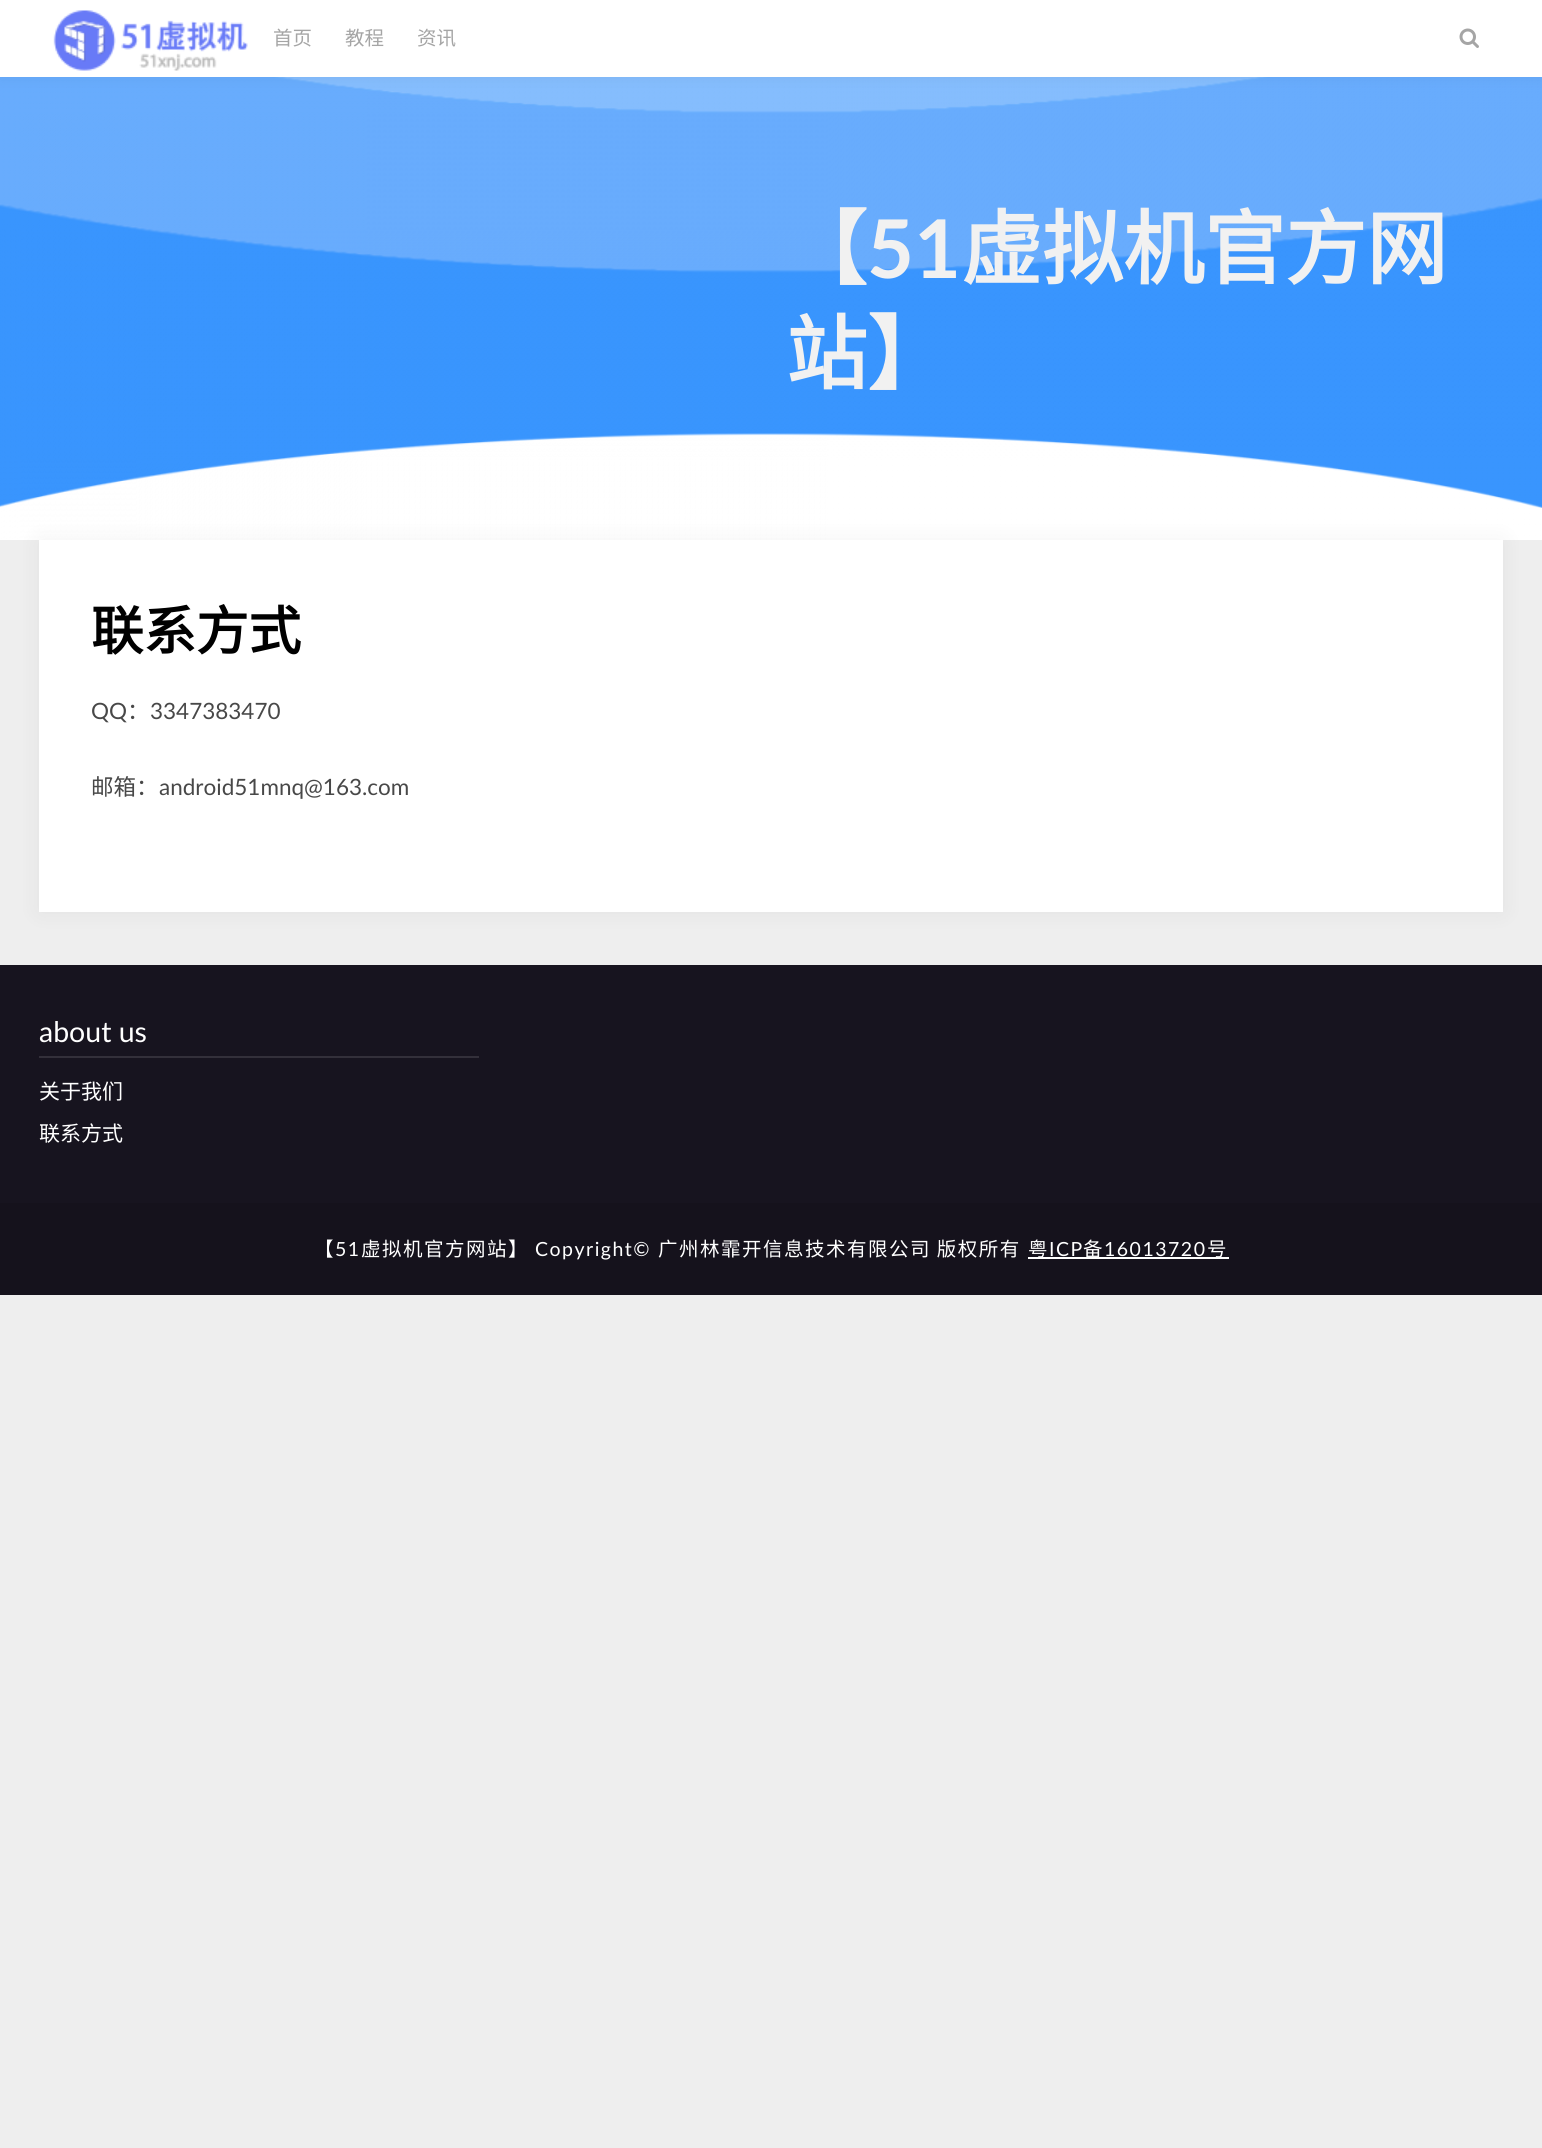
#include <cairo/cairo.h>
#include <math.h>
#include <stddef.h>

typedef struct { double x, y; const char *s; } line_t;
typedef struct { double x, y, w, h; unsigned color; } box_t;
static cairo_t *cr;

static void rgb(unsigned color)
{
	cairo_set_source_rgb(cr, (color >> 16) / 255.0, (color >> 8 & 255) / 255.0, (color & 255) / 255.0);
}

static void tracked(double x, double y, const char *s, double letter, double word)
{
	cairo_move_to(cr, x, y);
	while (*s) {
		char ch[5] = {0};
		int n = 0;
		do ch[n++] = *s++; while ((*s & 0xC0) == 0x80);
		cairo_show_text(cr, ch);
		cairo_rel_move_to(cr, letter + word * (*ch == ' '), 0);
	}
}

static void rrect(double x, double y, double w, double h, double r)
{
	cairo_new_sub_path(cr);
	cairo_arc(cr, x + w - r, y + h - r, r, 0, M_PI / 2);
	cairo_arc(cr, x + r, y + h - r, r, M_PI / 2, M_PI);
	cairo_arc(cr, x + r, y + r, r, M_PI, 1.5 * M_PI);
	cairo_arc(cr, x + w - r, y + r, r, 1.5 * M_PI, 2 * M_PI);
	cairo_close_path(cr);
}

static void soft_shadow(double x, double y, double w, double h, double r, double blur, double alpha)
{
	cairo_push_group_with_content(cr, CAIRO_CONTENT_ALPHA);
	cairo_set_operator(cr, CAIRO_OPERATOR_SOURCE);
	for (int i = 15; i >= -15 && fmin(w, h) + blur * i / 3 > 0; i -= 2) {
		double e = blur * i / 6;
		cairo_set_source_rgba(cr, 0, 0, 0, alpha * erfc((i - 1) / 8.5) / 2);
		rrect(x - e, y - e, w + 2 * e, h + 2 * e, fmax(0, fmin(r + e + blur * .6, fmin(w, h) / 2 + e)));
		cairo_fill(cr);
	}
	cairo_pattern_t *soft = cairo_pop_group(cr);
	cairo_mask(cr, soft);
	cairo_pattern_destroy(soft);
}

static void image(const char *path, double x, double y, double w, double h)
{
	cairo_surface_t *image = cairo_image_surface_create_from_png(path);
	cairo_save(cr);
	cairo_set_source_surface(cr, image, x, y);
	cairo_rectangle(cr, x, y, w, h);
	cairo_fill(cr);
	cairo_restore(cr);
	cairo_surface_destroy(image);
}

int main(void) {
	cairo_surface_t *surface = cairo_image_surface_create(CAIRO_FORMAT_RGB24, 1542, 2148);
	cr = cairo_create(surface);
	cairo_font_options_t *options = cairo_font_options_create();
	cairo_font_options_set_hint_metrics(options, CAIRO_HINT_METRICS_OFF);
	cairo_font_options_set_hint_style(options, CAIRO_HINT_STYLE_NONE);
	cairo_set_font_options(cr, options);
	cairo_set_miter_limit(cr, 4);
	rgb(0xeeeeee);
	cairo_paint(cr);
	image("img/1.png", 0, 77, 1542, 463);
	rgb(0x000000);
	soft_shadow(0, 0, 1542, 77, 0, 7.5, 0.05);
	rgb(0xffffff);
	cairo_rectangle(cr, 0, 0, 1542, 77);
	cairo_fill(cr);
	image("img/2.png", 53, 10, 195, 61);
	image("img/3.png", 1459, 28, 20, 20);
	rgb(0x000000);
	soft_shadow(39, 540, 1464, 372, 0, 11, 0.05);
	{
		static const box_t items[] = {
			{39, 540, 1464, 372, 0xffffff},
			{0, 965, 1542, 238, 0x17141f},
			{39, 1056, 440, 2, 0x33303a},
			{0, 1203, 1542, 92, 0x15121c},
			{1028, 1257, 201, 2, 0xffffff},
		};
		for (size_t i = 0; i < sizeof items / sizeof *items; i++) {
			rgb(items[i].color);
			cairo_rectangle(cr, items[i].x, items[i].y, items[i].w, items[i].h);
			cairo_fill(cr);
		}
	}
	cairo_select_font_face(cr, "Noto Sans CJK SC", CAIRO_FONT_SLANT_NORMAL, CAIRO_FONT_WEIGHT_NORMAL);
	cairo_set_font_size(cr, 19.5);
	rgb(0xa5a5a5);
	{
		static const line_t items[] = {
			{273, 45, "首页"},
			{345, 45, "教程"},
			{417, 45, "资讯"},
		};
		for (size_t i = 0; i < sizeof items / sizeof *items; i++) {
			cairo_move_to(cr, items[i].x, items[i].y);
			cairo_show_text(cr, items[i].s);
		}
	}
	cairo_select_font_face(cr, "Noto Sans CJK SC", CAIRO_FONT_SLANT_NORMAL, CAIRO_FONT_WEIGHT_BOLD);
	cairo_set_font_size(cr, 81);
	rgb(0xf1f1f1);
	cairo_move_to(cr, 786, 278);
	cairo_show_text(cr, "【");
	cairo_select_font_face(cr, "Lato", CAIRO_FONT_SLANT_NORMAL, CAIRO_FONT_WEIGHT_BOLD);
	cairo_move_to(cr, 867, 278);
	cairo_show_text(cr, "51");
	cairo_select_font_face(cr, "Noto Sans CJK SC", CAIRO_FONT_SLANT_NORMAL, CAIRO_FONT_WEIGHT_BOLD);
	cairo_move_to(cr, 961, 278);
	cairo_show_text(cr, "虚拟机官方网");
	cairo_move_to(cr, 786, 383);
	cairo_show_text(cr, "站】");
	cairo_set_font_size(cr, 52.5);
	rgb(0x000000);
	cairo_move_to(cr, 91, 650);
	cairo_show_text(cr, "联系方式");
	cairo_select_font_face(cr, "Lato", CAIRO_FONT_SLANT_NORMAL, CAIRO_FONT_WEIGHT_NORMAL);
	cairo_set_font_size(cr, 22.5);
	rgb(0x484848);
	cairo_move_to(cr, 91, 719);
	cairo_show_text(cr, "QQ");
	cairo_select_font_face(cr, "Noto Sans CJK SC", CAIRO_FONT_SLANT_NORMAL, CAIRO_FONT_WEIGHT_NORMAL);
	cairo_move_to(cr, 127, 719);
	cairo_show_text(cr, "：");
	cairo_select_font_face(cr, "Lato", CAIRO_FONT_SLANT_NORMAL, CAIRO_FONT_WEIGHT_NORMAL);
	cairo_move_to(cr, 150, 719);
	cairo_show_text(cr, "3347383470");
	cairo_select_font_face(cr, "Noto Sans CJK SC", CAIRO_FONT_SLANT_NORMAL, CAIRO_FONT_WEIGHT_NORMAL);
	cairo_move_to(cr, 91, 795);
	cairo_show_text(cr, "邮箱：");
	cairo_select_font_face(cr, "Lato", CAIRO_FONT_SLANT_NORMAL, CAIRO_FONT_WEIGHT_NORMAL);
	cairo_move_to(cr, 159, 795);
	cairo_show_text(cr, "android51mnq@163.com");
	cairo_set_font_size(cr, 28.5);
	rgb(0xffffff);
	cairo_move_to(cr, 39, 1042);
	cairo_show_text(cr, "about us");
	cairo_select_font_face(cr, "Noto Sans CJK SC", CAIRO_FONT_SLANT_NORMAL, CAIRO_FONT_WEIGHT_NORMAL);
	cairo_set_font_size(cr, 21);
	cairo_move_to(cr, 39, 1099);
	cairo_show_text(cr, "关于我们");
	cairo_move_to(cr, 39, 1141);
	cairo_show_text(cr, "联系方式");
	cairo_set_font_size(cr, 19.5);
	tracked(314, 1256, "【", 1.5, 0);
	cairo_select_font_face(cr, "Lato", CAIRO_FONT_SLANT_NORMAL, CAIRO_FONT_WEIGHT_NORMAL);
	tracked(335, 1256, "51", 1.5, 0);
	cairo_select_font_face(cr, "Noto Sans CJK SC", CAIRO_FONT_SLANT_NORMAL, CAIRO_FONT_WEIGHT_NORMAL);
	tracked(361, 1256, "虚拟机官方网站】", 1.5, 0);
	cairo_select_font_face(cr, "Lato", CAIRO_FONT_SLANT_NORMAL, CAIRO_FONT_WEIGHT_NORMAL);
	tracked(535, 1256, "Copyright©", 1.5, 0);
	cairo_select_font_face(cr, "Noto Sans CJK SC", CAIRO_FONT_SLANT_NORMAL, CAIRO_FONT_WEIGHT_NORMAL);
	tracked(658, 1256, "广州林霏开信息技术有限公司 版权所有", 1.5, 0);
	tracked(1028, 1256, "粤", 1.5, 0);
	cairo_select_font_face(cr, "Lato", CAIRO_FONT_SLANT_NORMAL, CAIRO_FONT_WEIGHT_NORMAL);
	tracked(1049, 1256, "ICP", 1.5, 0);
	cairo_select_font_face(cr, "Noto Sans CJK SC", CAIRO_FONT_SLANT_NORMAL, CAIRO_FONT_WEIGHT_NORMAL);
	tracked(1083, 1256, "备", 1.5, 0);
	cairo_select_font_face(cr, "Lato", CAIRO_FONT_SLANT_NORMAL, CAIRO_FONT_WEIGHT_NORMAL);
	tracked(1104, 1256, "16013720", 1.5, 0);
	cairo_select_font_face(cr, "Noto Sans CJK SC", CAIRO_FONT_SLANT_NORMAL, CAIRO_FONT_WEIGHT_NORMAL);
	tracked(1207, 1256, "号", 1.5, 0);
	cairo_surface_write_to_png(surface, "page.png");
	cairo_font_options_destroy(options);
	cairo_destroy(cr);
	cairo_surface_destroy(surface);
	return 0;
}
